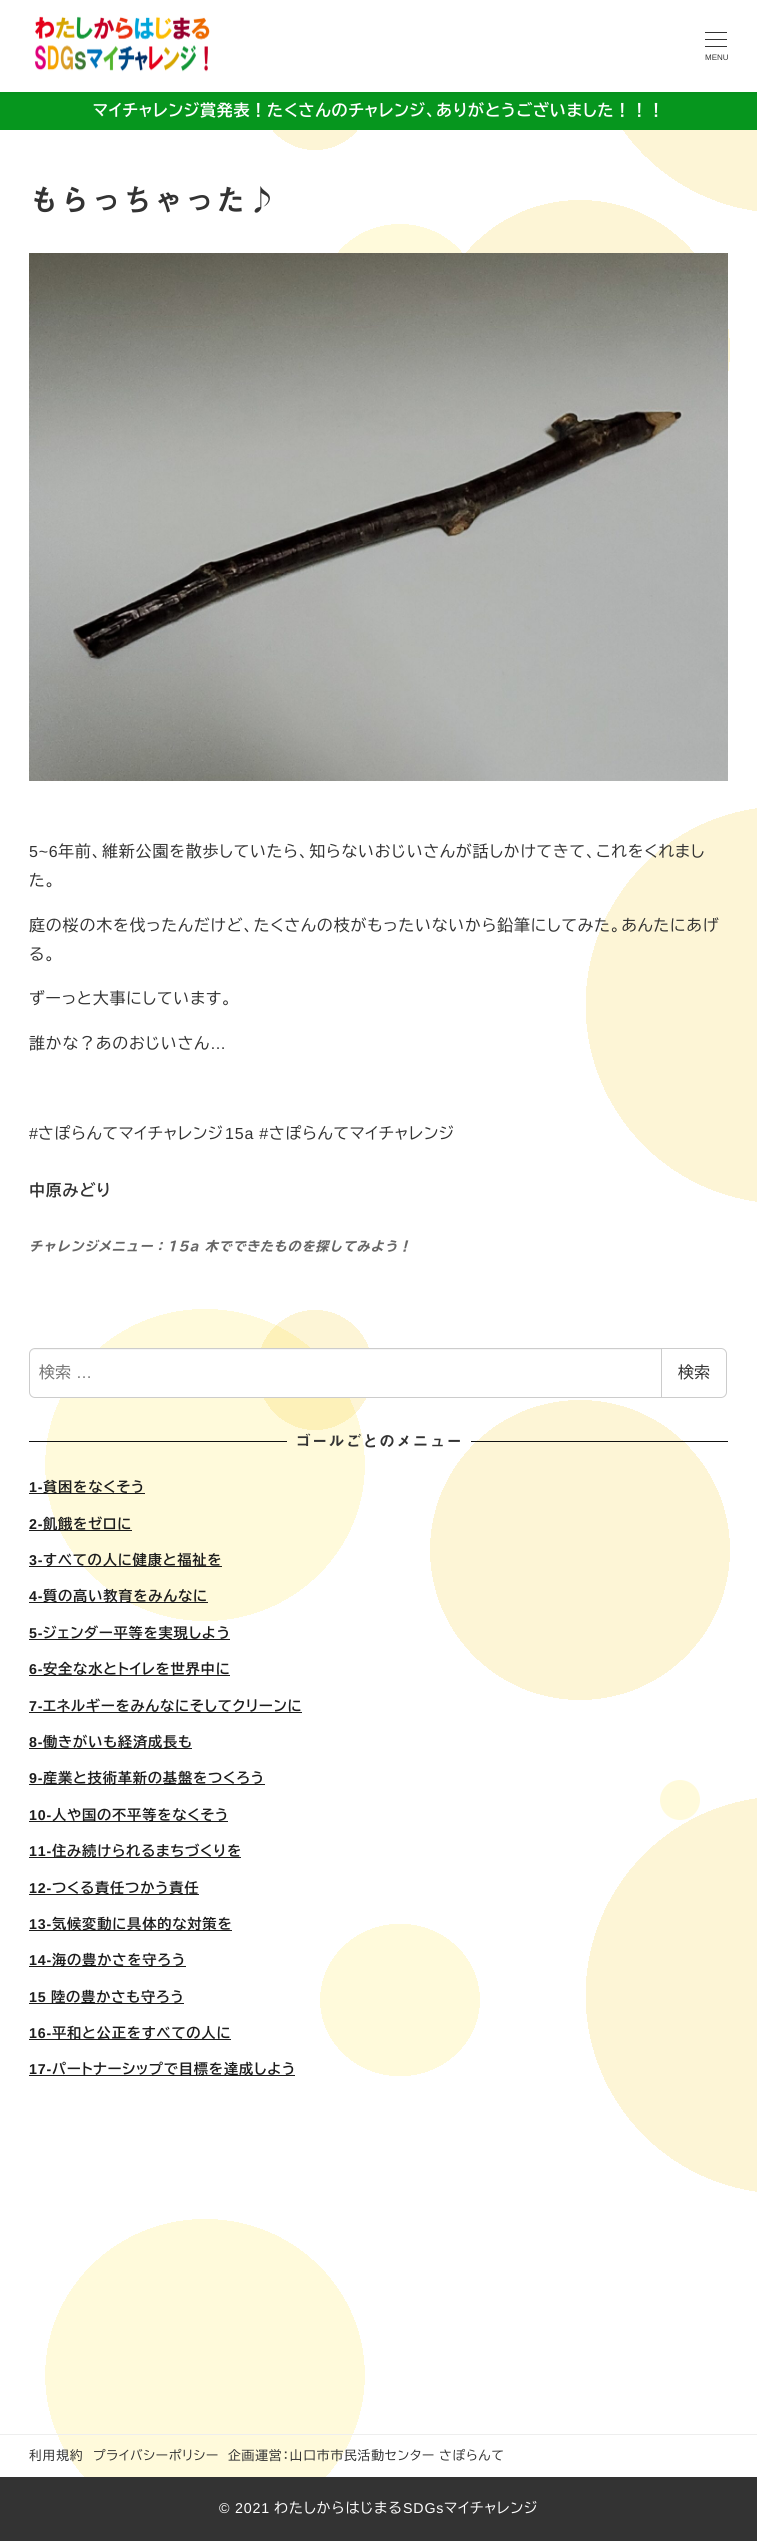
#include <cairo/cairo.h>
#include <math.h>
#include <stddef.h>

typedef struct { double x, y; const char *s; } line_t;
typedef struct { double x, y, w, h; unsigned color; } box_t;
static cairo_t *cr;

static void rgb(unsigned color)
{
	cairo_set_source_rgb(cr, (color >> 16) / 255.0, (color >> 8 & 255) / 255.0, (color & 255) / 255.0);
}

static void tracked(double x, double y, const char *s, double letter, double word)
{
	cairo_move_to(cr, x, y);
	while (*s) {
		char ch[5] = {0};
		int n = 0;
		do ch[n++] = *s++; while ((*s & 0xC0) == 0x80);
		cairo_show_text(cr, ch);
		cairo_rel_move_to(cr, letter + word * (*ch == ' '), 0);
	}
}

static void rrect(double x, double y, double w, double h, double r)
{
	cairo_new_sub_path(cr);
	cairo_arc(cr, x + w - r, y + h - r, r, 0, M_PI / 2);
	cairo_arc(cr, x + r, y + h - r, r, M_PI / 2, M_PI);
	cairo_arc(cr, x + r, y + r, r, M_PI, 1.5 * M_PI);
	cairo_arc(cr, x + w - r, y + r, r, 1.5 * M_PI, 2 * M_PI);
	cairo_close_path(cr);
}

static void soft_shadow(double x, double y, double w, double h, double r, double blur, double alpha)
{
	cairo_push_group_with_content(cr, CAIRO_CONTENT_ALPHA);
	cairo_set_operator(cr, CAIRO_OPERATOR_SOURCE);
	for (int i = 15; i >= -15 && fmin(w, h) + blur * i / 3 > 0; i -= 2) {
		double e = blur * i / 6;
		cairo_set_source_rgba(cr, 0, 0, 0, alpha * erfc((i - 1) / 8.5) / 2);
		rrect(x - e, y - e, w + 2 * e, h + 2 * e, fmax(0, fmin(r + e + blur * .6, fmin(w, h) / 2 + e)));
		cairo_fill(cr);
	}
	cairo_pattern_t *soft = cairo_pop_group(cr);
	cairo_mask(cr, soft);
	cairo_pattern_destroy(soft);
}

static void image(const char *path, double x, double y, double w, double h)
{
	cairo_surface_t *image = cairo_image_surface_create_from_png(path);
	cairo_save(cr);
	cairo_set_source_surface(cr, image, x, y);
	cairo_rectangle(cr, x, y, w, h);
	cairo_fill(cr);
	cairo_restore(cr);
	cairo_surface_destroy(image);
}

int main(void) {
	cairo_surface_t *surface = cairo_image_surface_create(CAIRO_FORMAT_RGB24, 757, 2541);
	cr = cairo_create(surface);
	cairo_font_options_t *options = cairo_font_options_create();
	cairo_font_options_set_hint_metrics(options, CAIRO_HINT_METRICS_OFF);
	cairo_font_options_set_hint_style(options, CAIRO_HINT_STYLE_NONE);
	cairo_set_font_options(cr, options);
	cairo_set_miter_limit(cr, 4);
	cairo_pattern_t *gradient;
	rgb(0xffffff);
	cairo_paint(cr);
	cairo_new_path(cr);
	cairo_move_to(cr, 680, 500);
	cairo_line_to(cr, 680, 1800.2);
	rgb(0xfffadb);
	cairo_set_line_width(cr, 40);
	cairo_set_line_cap(cr, CAIRO_LINE_CAP_ROUND);
	cairo_set_dash(cr, (double[]){0, 1300}, 2, 0);
	cairo_stroke(cr);
	gradient = cairo_pattern_create_radial(580, 350, 0, 580, 350, 750);
	cairo_pattern_add_color_stop_rgba(gradient, 0.2, 0.961, 0.796, 0.2, 0.2);
	cairo_pattern_add_color_stop_rgba(gradient, 0.2, 0.961, 0.796, 0.2, 0);
	cairo_set_source(cr, gradient);
	cairo_pattern_destroy(gradient);
	cairo_rectangle(cr, 466, 200, 265, 180);
	cairo_fill(cr);
	gradient = cairo_pattern_create_radial(580, 1550, 0, 580, 1550, 750);
	cairo_pattern_add_color_stop_rgba(gradient, 0.2, 0.961, 0.796, 0.2, 0.2);
	cairo_pattern_add_color_stop_rgba(gradient, 0.2, 0.961, 0.796, 0.2, 0);
	cairo_set_source(cr, gradient);
	cairo_pattern_destroy(gradient);
	cairo_rectangle(cr, 430, 1399, 301, 302);
	cairo_fill(cr);
	gradient = cairo_pattern_create_radial(0, 0, 0, 0, 0, 1);
	cairo_pattern_set_matrix(gradient, &(cairo_matrix_t){1.0 / 400, 0, 0, 1.0 / 380, -1.0 * 400 / 400, -1.0 * 300 / 380});
	cairo_pattern_add_color_stop_rgba(gradient, 0.2, 1, 0.906, 0.29, 0.2);
	cairo_pattern_add_color_stop_rgba(gradient, 0.2, 1, 0.906, 0.29, 0);
	cairo_set_source(cr, gradient);
	cairo_pattern_destroy(gradient);
	cairo_rectangle(cr, 338, 224, 124, 29);
	cairo_fill(cr);
	gradient = cairo_pattern_create_radial(0, 0, 0, 0, 0, 1);
	cairo_pattern_set_matrix(gradient, &(cairo_matrix_t){1.0 / 400, 0, 0, 1.0 / 380, -1.0 * 400 / 400, -1.0 * 2000 / 380});
	cairo_pattern_add_color_stop_rgba(gradient, 0.2, 1, 0.906, 0.29, 0.2);
	cairo_pattern_add_color_stop_rgba(gradient, 0.2, 1, 0.906, 0.29, 0);
	cairo_set_source(cr, gradient);
	cairo_pattern_destroy(gradient);
	cairo_rectangle(cr, 320, 1924, 160, 152);
	cairo_fill(cr);
	gradient = cairo_pattern_create_radial(0, 0, 0, 0, 0, 1);
	cairo_pattern_set_matrix(gradient, &(cairo_matrix_t){1.0 / 1000, 0, 0, 1.0 / 990, -1.0 * 785 / 1000, -1.0 * 15 / 990});
	cairo_pattern_add_color_stop_rgba(gradient, 0.2, 0.961, 0.796, 0.2, 0.2);
	cairo_pattern_add_color_stop_rgba(gradient, 0.2, 0.961, 0.796, 0.2, 0);
	cairo_set_source(cr, gradient);
	cairo_pattern_destroy(gradient);
	cairo_rectangle(cr, 623, 130, 134, 81);
	cairo_fill(cr);
	gradient = cairo_pattern_create_radial(0, 0, 0, 0, 0, 1);
	cairo_pattern_set_matrix(gradient, &(cairo_matrix_t){1.0 / 1000, 0, 0, 1.0 / 990, -1.0 * 785 / 1000, -1.0 * 1005 / 990});
	cairo_pattern_add_color_stop_rgba(gradient, 0.2, 0.961, 0.796, 0.2, 0.2);
	cairo_pattern_add_color_stop_rgba(gradient, 0.2, 0.961, 0.796, 0.2, 0);
	cairo_set_source(cr, gradient);
	cairo_pattern_destroy(gradient);
	cairo_rectangle(cr, 586, 808, 171, 394);
	cairo_fill(cr);
	gradient = cairo_pattern_create_radial(0, 0, 0, 0, 0, 1);
	cairo_pattern_set_matrix(gradient, &(cairo_matrix_t){1.0 / 1000, 0, 0, 1.0 / 990, -1.0 * 785 / 1000, -1.0 * 1995 / 990});
	cairo_pattern_add_color_stop_rgba(gradient, 0.2, 0.961, 0.796, 0.2, 0.2);
	cairo_pattern_add_color_stop_rgba(gradient, 0.2, 0.961, 0.796, 0.2, 0);
	cairo_set_source(cr, gradient);
	cairo_pattern_destroy(gradient);
	cairo_rectangle(cr, 586, 1798, 171, 394);
	cairo_fill(cr);
	gradient = cairo_pattern_create_radial(0, 0, 0, 0, 0, 1);
	cairo_pattern_set_matrix(gradient, &(cairo_matrix_t){1.0 / 800, 0, 0, 1.0 / 780, -1.0 * 205 / 800, -1.0 * 1465 / 780});
	cairo_pattern_add_color_stop_rgba(gradient, 0.2, 1, 0.906, 0.29, 0.2);
	cairo_pattern_add_color_stop_rgba(gradient, 0.2, 1, 0.906, 0.29, 0);
	cairo_set_source(cr, gradient);
	cairo_pattern_destroy(gradient);
	cairo_rectangle(cr, 45, 1309, 320, 312);
	cairo_fill(cr);
	gradient = cairo_pattern_create_radial(0, 0, 0, 0, 0, 1);
	cairo_pattern_set_matrix(gradient, &(cairo_matrix_t){1.0 / 800, 0, 0, 1.0 / 780, -1.0 * 205 / 800, -1.0 * 2375 / 780});
	cairo_pattern_add_color_stop_rgba(gradient, 0.2, 1, 0.906, 0.29, 0.2);
	cairo_pattern_add_color_stop_rgba(gradient, 0.2, 1, 0.906, 0.29, 0);
	cairo_set_source(cr, gradient);
	cairo_pattern_destroy(gradient);
	cairo_rectangle(cr, 45, 2219, 320, 258);
	cairo_fill(cr);
	gradient = cairo_pattern_create_radial(0, 0, 0, 0, 0, 1);
	cairo_pattern_set_matrix(gradient, &(cairo_matrix_t){1.0 / 290, 0, 0, 1.0 / 300, -1.0 * 315 / 290, -1.0 * 90 / 300});
	cairo_pattern_add_color_stop_rgba(gradient, 0.2, 0.961, 0.796, 0.2, 0.2);
	cairo_pattern_add_color_stop_rgba(gradient, 0.2, 0.961, 0.796, 0.2, 0);
	cairo_set_source(cr, gradient);
	cairo_pattern_destroy(gradient);
	cairo_rectangle(cr, 273, 130, 84, 20);
	cairo_fill(cr);
	gradient = cairo_pattern_create_radial(0, 0, 0, 0, 0, 1);
	cairo_pattern_set_matrix(gradient, &(cairo_matrix_t){1.0 / 290, 0, 0, 1.0 / 300, -1.0 * 315 / 290, -1.0 * 1370 / 300});
	cairo_pattern_add_color_stop_rgba(gradient, 0.2, 0.961, 0.796, 0.2, 0.2);
	cairo_pattern_add_color_stop_rgba(gradient, 0.2, 0.961, 0.796, 0.2, 0);
	cairo_set_source(cr, gradient);
	cairo_pattern_destroy(gradient);
	cairo_rectangle(cr, 261, 1310, 108, 120);
	cairo_fill(cr);
	rgb(0x06961e);
	cairo_rectangle(cr, 0, 92, 757, 38);
	cairo_fill(cr);
	rgb(0x000000);
	soft_shadow(-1, 0, 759, 94, 0, 1, 0.05);
	rgb(0xffffff);
	cairo_rectangle(cr, 0, 0, 757, 92);
	cairo_fill(cr);
	image("img/1.png", 34, 16, 176, 56);
	{
		static const box_t items[] = {
			{705, 32, 22, 1, 0x333333},
			{705, 39, 22, 1, 0x333333},
			{705, 46, 22, 1, 0x333333},
		};
		for (size_t i = 0; i < sizeof items / sizeof *items; i++) {
			rgb(items[i].color);
			cairo_rectangle(cr, items[i].x, items[i].y, items[i].w, items[i].h);
			cairo_fill(cr);
		}
	}
	image("img/2.png", 29, 253, 699, 528);
	cairo_new_path(cr);
	cairo_move_to(cr, 661.5, 1348.5);
	cairo_line_to(cr, 721, 1348.5);
	cairo_curve_to(cr, 724, 1348.5, 726.5, 1351, 726.5, 1354);
	cairo_line_to(cr, 726.5, 1392);
	cairo_curve_to(cr, 726.5, 1395, 724, 1397.5, 721, 1397.5);
	cairo_line_to(cr, 661.5, 1397.5);
	cairo_close_path(cr);
	rgb(0xcccccc);
	cairo_set_line_width(cr, 1);
	cairo_set_line_cap(cr, CAIRO_LINE_CAP_BUTT);
	cairo_set_dash(cr, NULL, 0, 0);
	cairo_stroke(cr);
	rgb(0xffffff);
	cairo_new_path(cr);
	cairo_move_to(cr, 35, 1348);
	cairo_line_to(cr, 662, 1348);
	cairo_line_to(cr, 662, 1398);
	cairo_line_to(cr, 35, 1398);
	cairo_curve_to(cr, 31.5, 1398, 29, 1395.5, 29, 1392);
	cairo_line_to(cr, 29, 1354);
	cairo_curve_to(cr, 29, 1350.5, 31.5, 1348, 35, 1348);
	cairo_close_path(cr);
	cairo_fill(cr);
	rgb(0xf6f6f6);
	cairo_new_path(cr);
	cairo_move_to(cr, 35, 1350);
	cairo_line_to(cr, 661, 1350);
	cairo_line_to(cr, 661, 1349);
	cairo_line_to(cr, 35, 1349);
	cairo_curve_to(cr, 32, 1349, 30, 1352, 30, 1355);
	cairo_curve_to(cr, 30, 1352, 32, 1350, 35, 1350);
	cairo_close_path(cr);
	cairo_fill(cr);
	cairo_new_path(cr);
	cairo_move_to(cr, 35, 1348.5);
	cairo_line_to(cr, 661.5, 1348.5);
	cairo_line_to(cr, 661.5, 1397.5);
	cairo_line_to(cr, 35, 1397.5);
	cairo_curve_to(cr, 32, 1397.5, 29.5, 1395, 29.5, 1392);
	cairo_line_to(cr, 29.5, 1354);
	cairo_curve_to(cr, 29.5, 1351, 32, 1348.5, 35, 1348.5);
	cairo_close_path(cr);
	rgb(0xcccccc);
	cairo_stroke(cr);
	{
		static const box_t items[] = {
			{29, 1441, 258, 1, 0x111111},
			{471, 1441, 257, 1, 0x111111},
			{29, 1493, 116, 1, 0x1c1c1c},
			{29, 1530, 103, 1, 0x1c1c1c},
			{29, 1566, 193, 1, 0x1c1c1c},
			{29, 1602, 179, 1, 0x1c1c1c},
			{29, 1639, 201, 1, 0x1c1c1c},
			{29, 1675, 201, 1, 0x1c1c1c},
			{29, 1712, 273, 1, 0x1c1c1c},
			{29, 1748, 163, 1, 0x1c1c1c},
			{29, 1784, 236, 1, 0x1c1c1c},
			{29, 1821, 199, 1, 0x1c1c1c},
			{29, 1857, 212, 1, 0x1c1c1c},
			{29, 1894, 170, 1, 0x1c1c1c},
			{29, 1930, 203, 1, 0x1c1c1c},
			{29, 1966, 157, 1, 0x1c1c1c},
			{29, 2003, 155, 1, 0x1c1c1c},
			{29, 2039, 202, 1, 0x1c1c1c},
			{29, 2075, 266, 1, 0x1c1c1c},
			{0, 2434, 757, 1, 0xeeeeee},
			{0, 2477, 757, 64, 0x333333},
		};
		for (size_t i = 0; i < sizeof items / sizeof *items; i++) {
			rgb(items[i].color);
			cairo_rectangle(cr, items[i].x, items[i].y, items[i].w, items[i].h);
			cairo_fill(cr);
		}
	}
	cairo_select_font_face(cr, "Liberation Sans", CAIRO_FONT_SLANT_NORMAL, CAIRO_FONT_WEIGHT_NORMAL);
	cairo_set_font_size(cr, 8);
	cairo_move_to(cr, 705, 60);
	cairo_show_text(cr, "MENU");
	cairo_select_font_face(cr, "BIZ UDPGothic", CAIRO_FONT_SLANT_NORMAL, CAIRO_FONT_WEIGHT_BOLD);
	cairo_set_font_size(cr, 16);
	rgb(0xffffff);
	tracked(93, 116, "マイチャレンジ賞発表！たくさんのチャレンジ、ありがとうございました！！！", 0.8, 0);
	cairo_select_font_face(cr, "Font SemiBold", CAIRO_FONT_SLANT_NORMAL, CAIRO_FONT_WEIGHT_NORMAL);
	cairo_set_font_size(cr, 30.25);
	rgb(0x333333);
	tracked(29, 211, "もらっちゃった♪", 0.8, 0);
	cairo_select_font_face(cr, "Liberation Sans", CAIRO_FONT_SLANT_NORMAL, CAIRO_FONT_WEIGHT_NORMAL);
	cairo_set_font_size(cr, 16);
	tracked(29, 857, "5~6", 0.8, 0);
	cairo_select_font_face(cr, "BIZ UDPGothic", CAIRO_FONT_SLANT_NORMAL, CAIRO_FONT_WEIGHT_NORMAL);
	{
		static const line_t items[] = {
			{58, 857, "年前、維新公園を散歩していたら、知らないおじいさんが話しかけてきて、これをくれまし"},
			{29, 886, "た。"},
			{29, 931, "庭の桜の木を伐ったんだけど、たくさんの枝がもったいないから鉛筆にしてみた。あんたにあげ"},
			{29, 960, "る。"},
			{29, 1004, "ずーっと大事にしています。"},
			{29, 1049, "誰かな？あのおじいさん"},
		};
		for (size_t i = 0; i < sizeof items / sizeof *items; i++) {
			tracked(items[i].x, items[i].y, items[i].s, 0.8, 0);
		}
	}
	cairo_select_font_face(cr, "Liberation Sans", CAIRO_FONT_SLANT_NORMAL, CAIRO_FONT_WEIGHT_NORMAL);
	tracked(210, 1049, "…", 0.8, 0);
	tracked(29, 1139, "#", 0.8, 0);
	cairo_select_font_face(cr, "BIZ UDPGothic", CAIRO_FONT_SLANT_NORMAL, CAIRO_FONT_WEIGHT_NORMAL);
	tracked(38, 1139, "さぽらんてマイチャレンジ", 0.8, 0);
	cairo_select_font_face(cr, "Liberation Sans", CAIRO_FONT_SLANT_NORMAL, CAIRO_FONT_WEIGHT_NORMAL);
	tracked(225, 1139, "15a #", 0.8, 0);
	cairo_select_font_face(cr, "BIZ UDPGothic", CAIRO_FONT_SLANT_NORMAL, CAIRO_FONT_WEIGHT_NORMAL);
	tracked(269, 1139, "さぽらんてマイチャレンジ", 0.8, 0);
	cairo_select_font_face(cr, "BIZ UDPGothic", CAIRO_FONT_SLANT_NORMAL, CAIRO_FONT_WEIGHT_BOLD);
	tracked(29, 1196, "中原みどり", 0.8, 0);
	cairo_select_font_face(cr, "Font ExtraBold", CAIRO_FONT_SLANT_ITALIC, CAIRO_FONT_WEIGHT_NORMAL);
	cairo_set_font_size(cr, 13);
	rgb(0x666666);
	tracked(29, 1251, "チャレンジメニュー：15a 木でできたものを探してみよう！", 0.8, 0);
	cairo_select_font_face(cr, "BIZ UDPGothic", CAIRO_FONT_SLANT_NORMAL, CAIRO_FONT_WEIGHT_NORMAL);
	cairo_set_font_size(cr, 16);
	rgb(0x757575);
	cairo_move_to(cr, 39, 1378);
	cairo_show_text(cr, "検索");
	cairo_select_font_face(cr, "Liberation Sans", CAIRO_FONT_SLANT_NORMAL, CAIRO_FONT_WEIGHT_NORMAL);
	cairo_move_to(cr, 76, 1378);
	cairo_show_text(cr, "…");
	cairo_select_font_face(cr, "BIZ UDPGothic", CAIRO_FONT_SLANT_NORMAL, CAIRO_FONT_WEIGHT_NORMAL);
	rgb(0x333333);
	cairo_move_to(cr, 678, 1378);
	cairo_show_text(cr, "検索");
	cairo_select_font_face(cr, "Font SemiBold", CAIRO_FONT_SLANT_NORMAL, CAIRO_FONT_WEIGHT_NORMAL);
	tracked(295, 1447, "ゴールごとのメニュー", 0.8, 0);
	cairo_select_font_face(cr, "Liberation Sans", CAIRO_FONT_SLANT_NORMAL, CAIRO_FONT_WEIGHT_BOLD);
	cairo_set_font_size(cr, 14.25);
	rgb(0x1c1c1c);
	tracked(29, 1492, "1-", 0.8, 0);
	cairo_select_font_face(cr, "BIZ UDPGothic", CAIRO_FONT_SLANT_NORMAL, CAIRO_FONT_WEIGHT_BOLD);
	tracked(43, 1492, "貧困をなくそう", 0.8, 0);
	cairo_select_font_face(cr, "Liberation Sans", CAIRO_FONT_SLANT_NORMAL, CAIRO_FONT_WEIGHT_BOLD);
	tracked(29, 1529, "2-", 0.8, 0);
	cairo_select_font_face(cr, "BIZ UDPGothic", CAIRO_FONT_SLANT_NORMAL, CAIRO_FONT_WEIGHT_BOLD);
	tracked(43, 1529, "飢餓をゼロに", 0.8, 0);
	cairo_select_font_face(cr, "Liberation Sans", CAIRO_FONT_SLANT_NORMAL, CAIRO_FONT_WEIGHT_BOLD);
	tracked(29, 1565, "3-", 0.8, 0);
	cairo_select_font_face(cr, "BIZ UDPGothic", CAIRO_FONT_SLANT_NORMAL, CAIRO_FONT_WEIGHT_BOLD);
	tracked(43, 1565, "すべての人に健康と福祉を", 0.8, 0);
	cairo_select_font_face(cr, "Liberation Sans", CAIRO_FONT_SLANT_NORMAL, CAIRO_FONT_WEIGHT_BOLD);
	tracked(29, 1601, "4-", 0.8, 0);
	cairo_select_font_face(cr, "BIZ UDPGothic", CAIRO_FONT_SLANT_NORMAL, CAIRO_FONT_WEIGHT_BOLD);
	tracked(43, 1601, "質の高い教育をみんなに", 0.8, 0);
	cairo_select_font_face(cr, "Liberation Sans", CAIRO_FONT_SLANT_NORMAL, CAIRO_FONT_WEIGHT_BOLD);
	tracked(29, 1638, "5-", 0.8, 0);
	cairo_select_font_face(cr, "BIZ UDPGothic", CAIRO_FONT_SLANT_NORMAL, CAIRO_FONT_WEIGHT_BOLD);
	tracked(43, 1638, "ジェンダー平等を実現しよう", 0.8, 0);
	cairo_select_font_face(cr, "Liberation Sans", CAIRO_FONT_SLANT_NORMAL, CAIRO_FONT_WEIGHT_BOLD);
	tracked(29, 1674, "6-", 0.8, 0);
	cairo_select_font_face(cr, "BIZ UDPGothic", CAIRO_FONT_SLANT_NORMAL, CAIRO_FONT_WEIGHT_BOLD);
	tracked(43, 1674, "安全な水とトイレを世界中に", 0.8, 0);
	cairo_select_font_face(cr, "Liberation Sans", CAIRO_FONT_SLANT_NORMAL, CAIRO_FONT_WEIGHT_BOLD);
	tracked(29, 1711, "7-", 0.8, 0);
	cairo_select_font_face(cr, "BIZ UDPGothic", CAIRO_FONT_SLANT_NORMAL, CAIRO_FONT_WEIGHT_BOLD);
	tracked(43, 1711, "エネルギーをみんなにそしてクリーンに", 0.8, 0);
	cairo_select_font_face(cr, "Liberation Sans", CAIRO_FONT_SLANT_NORMAL, CAIRO_FONT_WEIGHT_BOLD);
	tracked(29, 1747, "8-", 0.8, 0);
	cairo_select_font_face(cr, "BIZ UDPGothic", CAIRO_FONT_SLANT_NORMAL, CAIRO_FONT_WEIGHT_BOLD);
	tracked(43, 1747, "働きがいも経済成長も", 0.8, 0);
	cairo_select_font_face(cr, "Liberation Sans", CAIRO_FONT_SLANT_NORMAL, CAIRO_FONT_WEIGHT_BOLD);
	tracked(29, 1783, "9-", 0.8, 0);
	cairo_select_font_face(cr, "BIZ UDPGothic", CAIRO_FONT_SLANT_NORMAL, CAIRO_FONT_WEIGHT_BOLD);
	tracked(43, 1783, "産業と技術革新の基盤をつくろう", 0.8, 0);
	cairo_select_font_face(cr, "Liberation Sans", CAIRO_FONT_SLANT_NORMAL, CAIRO_FONT_WEIGHT_BOLD);
	tracked(29, 1820, "10-", 0.8, 0);
	cairo_select_font_face(cr, "BIZ UDPGothic", CAIRO_FONT_SLANT_NORMAL, CAIRO_FONT_WEIGHT_BOLD);
	tracked(52, 1820, "人や国の不平等をなくそう", 0.8, 0);
	cairo_select_font_face(cr, "Liberation Sans", CAIRO_FONT_SLANT_NORMAL, CAIRO_FONT_WEIGHT_BOLD);
	tracked(29, 1856, "11-", 0.8, 0);
	cairo_select_font_face(cr, "BIZ UDPGothic", CAIRO_FONT_SLANT_NORMAL, CAIRO_FONT_WEIGHT_BOLD);
	tracked(52, 1856, "住み続けられるまちづくりを", 0.8, 0);
	cairo_select_font_face(cr, "Liberation Sans", CAIRO_FONT_SLANT_NORMAL, CAIRO_FONT_WEIGHT_BOLD);
	tracked(29, 1893, "12-", 0.8, 0);
	cairo_select_font_face(cr, "BIZ UDPGothic", CAIRO_FONT_SLANT_NORMAL, CAIRO_FONT_WEIGHT_BOLD);
	tracked(52, 1893, "つくる責任つかう責任", 0.8, 0);
	cairo_select_font_face(cr, "Liberation Sans", CAIRO_FONT_SLANT_NORMAL, CAIRO_FONT_WEIGHT_BOLD);
	tracked(29, 1929, "13-", 0.8, 0);
	cairo_select_font_face(cr, "BIZ UDPGothic", CAIRO_FONT_SLANT_NORMAL, CAIRO_FONT_WEIGHT_BOLD);
	tracked(52, 1929, "気候変動に具体的な対策を", 0.8, 0);
	cairo_select_font_face(cr, "Liberation Sans", CAIRO_FONT_SLANT_NORMAL, CAIRO_FONT_WEIGHT_BOLD);
	tracked(29, 1965, "14-", 0.8, 0);
	cairo_select_font_face(cr, "BIZ UDPGothic", CAIRO_FONT_SLANT_NORMAL, CAIRO_FONT_WEIGHT_BOLD);
	tracked(52, 1965, "海の豊かさを守ろう", 0.8, 0);
	cairo_select_font_face(cr, "Liberation Sans", CAIRO_FONT_SLANT_NORMAL, CAIRO_FONT_WEIGHT_BOLD);
	tracked(29, 2002, "15", 0.8, 0);
	cairo_select_font_face(cr, "BIZ UDPGothic", CAIRO_FONT_SLANT_NORMAL, CAIRO_FONT_WEIGHT_BOLD);
	tracked(51, 2002, "陸の豊かさも守ろう", 0.8, 0);
	cairo_select_font_face(cr, "Liberation Sans", CAIRO_FONT_SLANT_NORMAL, CAIRO_FONT_WEIGHT_BOLD);
	tracked(29, 2038, "16-", 0.8, 0);
	cairo_select_font_face(cr, "BIZ UDPGothic", CAIRO_FONT_SLANT_NORMAL, CAIRO_FONT_WEIGHT_BOLD);
	tracked(52, 2038, "平和と公正をすべての人に", 0.8, 0);
	cairo_select_font_face(cr, "Liberation Sans", CAIRO_FONT_SLANT_NORMAL, CAIRO_FONT_WEIGHT_BOLD);
	tracked(29, 2074, "17-", 0.8, 0);
	cairo_select_font_face(cr, "BIZ UDPGothic", CAIRO_FONT_SLANT_NORMAL, CAIRO_FONT_WEIGHT_BOLD);
	tracked(52, 2074, "パートナーシップで目標を達成しよう", 0.8, 0);
	cairo_select_font_face(cr, "BIZ UDPGothic", CAIRO_FONT_SLANT_NORMAL, CAIRO_FONT_WEIGHT_NORMAL);
	cairo_set_font_size(cr, 12.8);
	rgb(0x333333);
	tracked(29, 2460, "利用規約", 0.8, 0);
	tracked(93, 2460, "プライバシーポリシー", 0.8, 0);
	tracked(228, 2460, "企画運営：山口市市民活動センター さぽらんて", 0.8, -1);
	cairo_select_font_face(cr, "Liberation Sans", CAIRO_FONT_SLANT_NORMAL, CAIRO_FONT_WEIGHT_NORMAL);
	cairo_set_font_size(cr, 14.25);
	rgb(0xffffff);
	tracked(219, 2513, "© 2021", 0.8, 0);
	cairo_select_font_face(cr, "BIZ UDPGothic", CAIRO_FONT_SLANT_NORMAL, CAIRO_FONT_WEIGHT_NORMAL);
	tracked(274, 2513, "わたしからはじまる", 0.8, 0);
	cairo_select_font_face(cr, "Liberation Sans", CAIRO_FONT_SLANT_NORMAL, CAIRO_FONT_WEIGHT_NORMAL);
	tracked(403, 2513, "SDGs", 0.8, 0);
	cairo_select_font_face(cr, "BIZ UDPGothic", CAIRO_FONT_SLANT_NORMAL, CAIRO_FONT_WEIGHT_NORMAL);
	tracked(444, 2513, "マイチャレンジ", 0.8, 0);
	cairo_surface_write_to_png(surface, "page.png");
	cairo_font_options_destroy(options);
	cairo_destroy(cr);
	cairo_surface_destroy(surface);
	return 0;
}
